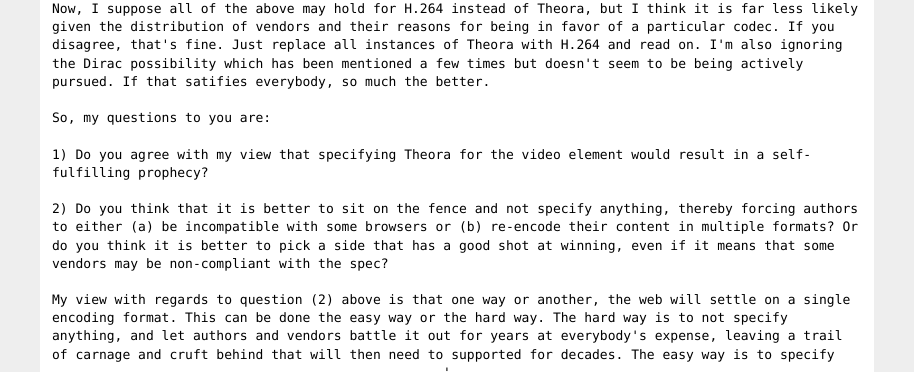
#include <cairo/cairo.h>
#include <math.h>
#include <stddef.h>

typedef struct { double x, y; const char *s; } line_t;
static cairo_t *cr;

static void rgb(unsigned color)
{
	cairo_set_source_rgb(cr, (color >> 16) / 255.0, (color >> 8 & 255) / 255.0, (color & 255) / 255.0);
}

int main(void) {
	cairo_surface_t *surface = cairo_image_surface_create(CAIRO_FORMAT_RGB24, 914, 372);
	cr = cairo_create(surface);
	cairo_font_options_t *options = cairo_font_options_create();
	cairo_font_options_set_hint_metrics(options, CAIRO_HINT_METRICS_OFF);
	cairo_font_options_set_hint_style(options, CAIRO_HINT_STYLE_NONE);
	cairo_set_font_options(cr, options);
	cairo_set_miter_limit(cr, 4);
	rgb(0xeeeeee);
	cairo_paint(cr);
	rgb(0xffffff);
	cairo_rectangle(cr, 40, 0, 834, 372);
	cairo_fill(cr);
	cairo_select_font_face(cr, "DejaVu Sans Mono", CAIRO_FONT_SLANT_NORMAL, CAIRO_FONT_WEIGHT_NORMAL);
	cairo_set_font_size(cr, 13);
	rgb(0x000000);
	{
		static const line_t items[] = {
			{52, 13, "Now, I suppose all of the above may hold for H.264 instead of Theora, but I think it is far less likely"},
			{52, 31, "given the distribution of vendors and their reasons for being in favor of a particular codec. If you"},
			{52, 49, "disagree, that's fine. Just replace all instances of Theora with H.264 and read on. I'm also ignoring"},
			{52, 68, "the Dirac possibility which has been mentioned a few times but doesn't seem to be being actively"},
			{52, 86, "pursued. If that satifies everybody, so much the better."},
			{52, 122, "So, my questions to you are:"},
			{52, 159, "1) Do you agree with my view that specifying Theora for the video element would result in a self-"},
			{52, 177, "fulfilling prophecy?"},
			{52, 213, "2) Do you think that it is better to sit on the fence and not specify anything, thereby forcing authors"},
			{52, 231, "to either (a) be incompatible with some browsers or (b) re-encode their content in multiple formats? Or"},
			{52, 250, "do you think it is better to pick a side that has a good shot at winning, even if it means that some"},
			{52, 268, "vendors may be non-compliant with the spec?"},
			{52, 304, "My view with regards to question (2) above is that one way or another, the web will settle on a single"},
			{52, 322, "encoding format. This can be done the easy way or the hard way. The hard way is to not specify"},
			{52, 340, "anything, and let authors and vendors battle it out for years at everybody's expense, leaving a trail"},
			{52, 359, "of carnage and cruft behind that will then need to supported for decades. The easy way is to specify"},
			{443, 377, "'"},
		};
		for (size_t i = 0; i < sizeof items / sizeof *items; i++) {
			cairo_move_to(cr, items[i].x, items[i].y);
			cairo_show_text(cr, items[i].s);
		}
	}
	cairo_surface_write_to_png(surface, "page.png");
	cairo_font_options_destroy(options);
	cairo_destroy(cr);
	cairo_surface_destroy(surface);
	return 0;
}
